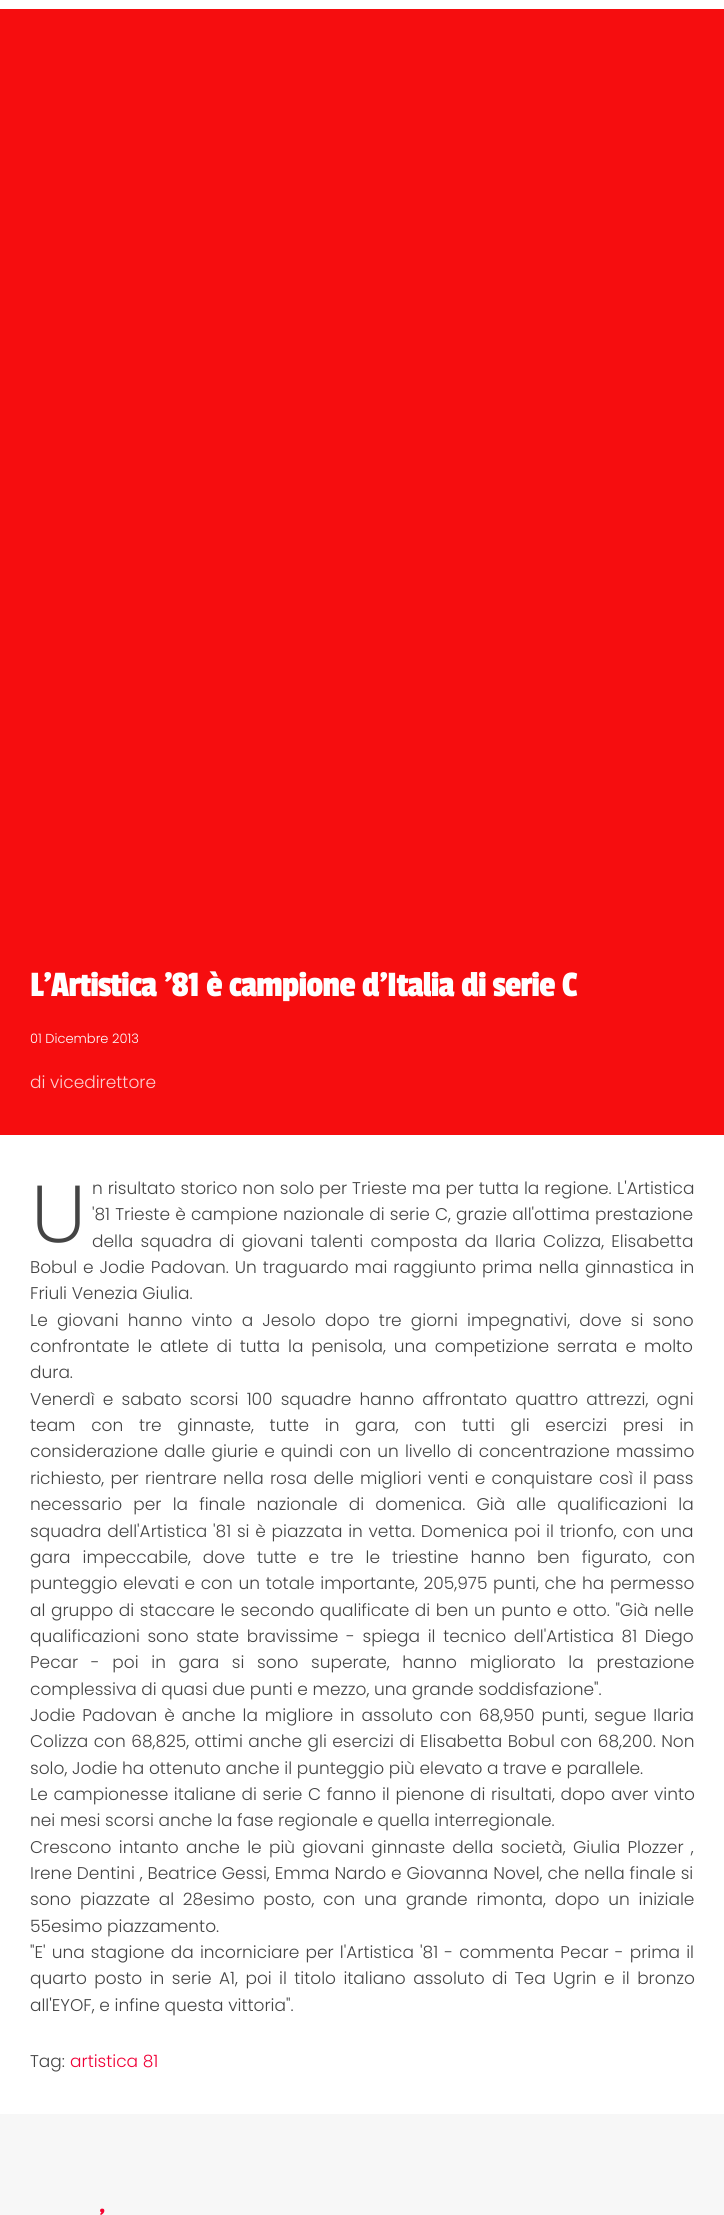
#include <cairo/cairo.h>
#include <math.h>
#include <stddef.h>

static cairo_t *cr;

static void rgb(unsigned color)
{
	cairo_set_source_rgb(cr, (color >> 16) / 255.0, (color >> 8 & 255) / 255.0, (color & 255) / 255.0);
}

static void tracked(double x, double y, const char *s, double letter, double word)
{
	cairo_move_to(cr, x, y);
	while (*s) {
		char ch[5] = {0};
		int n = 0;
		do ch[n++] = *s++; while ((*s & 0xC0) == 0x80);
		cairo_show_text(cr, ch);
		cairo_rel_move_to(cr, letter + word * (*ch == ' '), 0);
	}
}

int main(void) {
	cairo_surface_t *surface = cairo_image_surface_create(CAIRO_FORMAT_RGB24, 724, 2215);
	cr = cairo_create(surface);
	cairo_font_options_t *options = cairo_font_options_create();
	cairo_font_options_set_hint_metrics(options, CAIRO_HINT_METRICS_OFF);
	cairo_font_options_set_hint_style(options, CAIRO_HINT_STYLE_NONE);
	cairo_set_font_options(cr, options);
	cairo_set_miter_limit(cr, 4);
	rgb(0xffffff);
	cairo_paint(cr);
	rgb(0xf60d0f);
	cairo_rectangle(cr, 0, 9, 724, 1126);
	cairo_fill(cr);
	rgb(0xf7f7f7);
	cairo_rectangle(cr, 0, 2114, 724, 101);
	cairo_fill(cr);
	cairo_select_font_face(cr, "Passion One", CAIRO_FONT_SLANT_NORMAL, CAIRO_FONT_WEIGHT_NORMAL);
	cairo_set_font_size(cr, 37.4);
	rgb(0xffffff);
	tracked(30, 996, "L'Artistica '81 è campione d'Italia di serie C", -0.85, 0);
	cairo_select_font_face(cr, "Poppins Light", CAIRO_FONT_SLANT_NORMAL, CAIRO_FONT_WEIGHT_NORMAL);
	cairo_set_font_size(cr, 13);
	cairo_move_to(cr, 30, 1043);
	cairo_show_text(cr, "01 Dicembre 2013");
	cairo_set_font_size(cr, 17);
	rgb(0xfdcfcf);
	cairo_move_to(cr, 30, 1088);
	cairo_show_text(cr, "di vicedirettore");
	cairo_select_font_face(cr, "Noto Sans Light", CAIRO_FONT_SLANT_NORMAL, CAIRO_FONT_WEIGHT_NORMAL);
	cairo_set_font_size(cr, 79);
	rgb(0x444444);
	cairo_move_to(cr, 30, 1242);
	cairo_show_text(cr, "U");
	cairo_select_font_face(cr, "Poppins Light", CAIRO_FONT_SLANT_NORMAL, CAIRO_FONT_WEIGHT_NORMAL);
	cairo_set_font_size(cr, 17);
	tracked(92, 1194, "n risultato storico non solo per Trieste ma per tutta la regione.", 0, 0.25);
	cairo_move_to(cr, 617, 1194);
	cairo_show_text(cr, "L'Artistica");
	tracked(92, 1220, "'81 Trieste è campione nazionale di serie C, grazie all'ottima prestazione", 0, 0.5);
	tracked(92, 1247, "della squadra di giovani talenti composta da Ilaria Colizza, Elisabetta", 0, 2.5);
	tracked(30, 1273, "Bobul e Jodie Padovan. Un traguardo mai raggiunto prima nella ginnastica in", 0, 1.25);
	cairo_move_to(cr, 30, 1299);
	cairo_show_text(cr, "Friuli Venezia Giulia.");
	tracked(30, 1326, "Le giovani hanno vinto a Jesolo dopo tre giorni impegnativi, dove si sono", 0, 4.5);
	tracked(30, 1352, "confrontate le atlete di tutta la penisola, una competizione serrata e molto", 0, 3.25);
	cairo_move_to(cr, 30, 1378);
	cairo_show_text(cr, "dura.");
	tracked(30, 1405, "Venerdì e sabato scorsi 100 squadre hanno affrontato quattro attrezzi, ogni", 0, 3.5);
	tracked(30, 1431, "team con tre ginnaste, tutte in gara, con tutti gli esercizi presi in", 0, 11);
	tracked(30, 1457, "considerazione dalle giurie e quindi con un livello di concentrazione massimo", 0, 1.4);
	tracked(30, 1484, "richiesto, per rientrare nella rosa delle migliori venti e conquistare così il pass", 0, 1.6);
	tracked(30, 1510, "necessario per la finale nazionale di domenica. Già alle qualificazioni la", 0, 6.5);
	tracked(30, 1537, "squadra dell'Artistica '81 si è piazzata in vetta. Domenica poi il trionfo, con una", 0, 1.1);
	tracked(30, 1563, "gara impeccabile, dove tutte e tre le triestine hanno ben figurato, con", 0, 7.25);
	tracked(30, 1589, "punteggio elevati e con un totale importante, 205,975 punti, che ha permesso", 0, 1);
	tracked(30, 1616, "al gruppo di staccare le secondo qualificate di ben un punto e otto. \"Già nelle", 0, 0.9);
	tracked(30, 1642, "qualificazioni sono state bravissime - spiega il tecnico dell'Artistica 81 Diego", 0, 3);
	tracked(30, 1668, "Pecar - poi in gara si sono superate, hanno migliorato la prestazione", 0, 8);
	cairo_move_to(cr, 30, 1695);
	cairo_show_text(cr, "complessiva di quasi due punti e mezzo, una grande soddisfazione\".");
	tracked(30, 1721, "Jodie Padovan è anche la migliore in assoluto con 68,950 punti, segue Ilaria", 0, 2.25);
	tracked(30, 1747, "Colizza con 68,825, ottimi anche gli esercizi di Elisabetta Bobul con 68,200. Non", 0, 0.75);
	cairo_move_to(cr, 30, 1774);
	cairo_show_text(cr, "solo, Jodie ha ottenuto anche il punteggio più elevato a trave e parallele.");
	tracked(30, 1800, "Le campionesse italiane di serie C fanno il pienone di risultati, dopo aver vinto", 0, 1);
	cairo_move_to(cr, 30, 1826);
	cairo_show_text(cr, "nei mesi scorsi anche la fase regionale e quella interregionale.");
	tracked(30, 1853, "Crescono intanto anche le più giovani ginnaste della società, Giulia Plozzer ,", 0, 2.6);
	tracked(30, 1879, "Irene Dentini , Beatrice Gessi, Emma Nardo e Giovanna Novel, che nella finale si", 0, 0.25);
	tracked(30, 1905, "sono piazzate al 28esimo posto, con una grande rimonta, dopo un iniziale", 0, 4.1);
	cairo_move_to(cr, 30, 1932);
	cairo_show_text(cr, "55esimo piazzamento.");
	tracked(30, 1958, "\"E' una stagione da incorniciare per l'Artistica '81 - commenta Pecar - prima il", 0, 1.5);
	tracked(30, 1984, "quarto posto in serie A1, poi il titolo italiano assoluto di Tea Ugrin e il bronzo", 0, 2.75);
	cairo_move_to(cr, 30, 2011);
	cairo_show_text(cr, "all'EYOF, e infine questa vittoria\".");
	cairo_move_to(cr, 30, 2067);
	cairo_show_text(cr, "Tag:");
	rgb(0xef0036);
	cairo_move_to(cr, 70, 2067);
	cairo_show_text(cr, "artistica 81");
	cairo_select_font_face(cr, "Passion One", CAIRO_FONT_SLANT_NORMAL, CAIRO_FONT_WEIGHT_NORMAL);
	cairo_set_font_size(cr, 24);
	rgb(0xf60130);
	tracked(99, 2224, "'", -0.85, 0);
	cairo_surface_write_to_png(surface, "page.png");
	cairo_font_options_destroy(options);
	cairo_destroy(cr);
	cairo_surface_destroy(surface);
	return 0;
}
